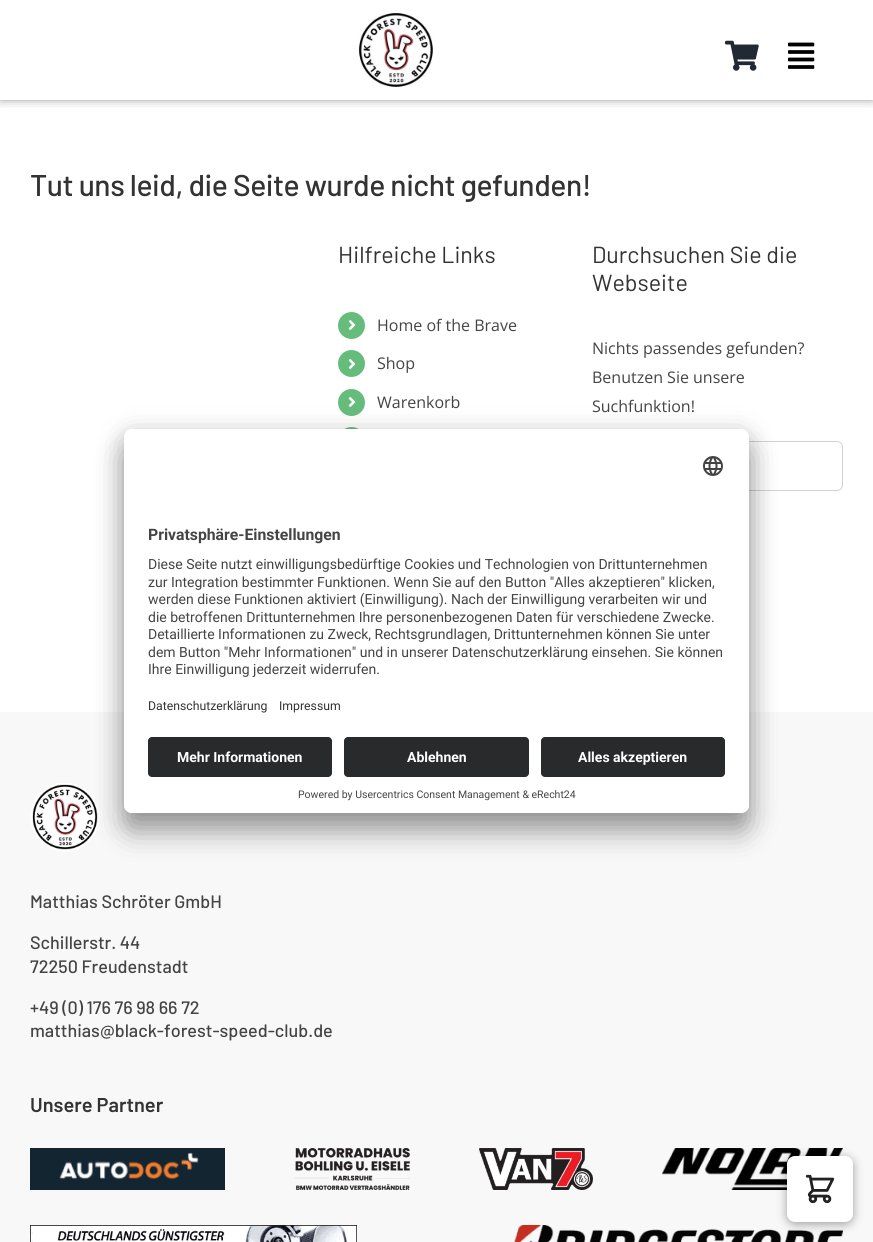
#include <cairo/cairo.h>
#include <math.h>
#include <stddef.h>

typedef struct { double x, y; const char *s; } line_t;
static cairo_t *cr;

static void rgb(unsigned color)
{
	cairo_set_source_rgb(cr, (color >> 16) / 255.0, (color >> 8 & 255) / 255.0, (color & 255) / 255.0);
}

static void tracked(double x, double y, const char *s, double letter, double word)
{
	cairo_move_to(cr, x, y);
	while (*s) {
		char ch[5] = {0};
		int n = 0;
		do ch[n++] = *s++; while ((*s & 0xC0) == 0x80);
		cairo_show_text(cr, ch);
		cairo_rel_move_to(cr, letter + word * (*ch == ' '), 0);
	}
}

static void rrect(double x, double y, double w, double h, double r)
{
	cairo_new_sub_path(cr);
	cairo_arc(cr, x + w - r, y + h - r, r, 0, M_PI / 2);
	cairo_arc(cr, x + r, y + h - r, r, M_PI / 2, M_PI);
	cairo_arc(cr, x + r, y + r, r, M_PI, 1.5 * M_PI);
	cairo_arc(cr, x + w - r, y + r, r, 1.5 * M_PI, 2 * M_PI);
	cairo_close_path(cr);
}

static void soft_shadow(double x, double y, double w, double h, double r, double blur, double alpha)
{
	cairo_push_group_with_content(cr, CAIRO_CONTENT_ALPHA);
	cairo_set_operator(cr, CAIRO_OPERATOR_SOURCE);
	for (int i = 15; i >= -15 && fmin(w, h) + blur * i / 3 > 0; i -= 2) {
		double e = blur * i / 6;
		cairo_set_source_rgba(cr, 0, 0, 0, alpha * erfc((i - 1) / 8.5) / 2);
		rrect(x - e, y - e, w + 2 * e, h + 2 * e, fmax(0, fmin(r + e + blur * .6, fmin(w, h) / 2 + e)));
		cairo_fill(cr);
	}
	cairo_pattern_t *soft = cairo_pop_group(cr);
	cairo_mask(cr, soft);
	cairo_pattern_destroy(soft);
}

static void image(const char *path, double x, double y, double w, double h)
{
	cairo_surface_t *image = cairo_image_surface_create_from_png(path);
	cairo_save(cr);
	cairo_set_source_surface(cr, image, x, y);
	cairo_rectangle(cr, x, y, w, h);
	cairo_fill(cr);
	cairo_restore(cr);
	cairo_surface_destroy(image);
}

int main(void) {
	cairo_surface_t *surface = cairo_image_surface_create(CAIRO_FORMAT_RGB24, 873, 1242);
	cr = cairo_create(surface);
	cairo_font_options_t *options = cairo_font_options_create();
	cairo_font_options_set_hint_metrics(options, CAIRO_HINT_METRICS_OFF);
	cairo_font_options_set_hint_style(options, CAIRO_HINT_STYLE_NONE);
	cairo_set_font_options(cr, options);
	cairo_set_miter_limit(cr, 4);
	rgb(0xffffff);
	cairo_paint(cr);
	cairo_save(cr);
	cairo_rectangle(cr, 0, 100, 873, 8);
	cairo_clip(cr);
	rgb(0x333333);
	soft_shadow(0, -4, 873, 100, 0, 6, 1);
	cairo_restore(cr);
	image("img/1.png", 358, 10, 75, 77);
	image("img/2.png", 725, 40, 34, 31);
	image("img/3.png", 788, 42, 27, 27);
	rgb(0x65bc7b);
	cairo_arc(cr, 351.5, 325.5, 13.5, 0, 2 * M_PI);
	cairo_fill(cr);
	image("img/4.png", 348, 320, 8, 10);
	cairo_arc(cr, 351.5, 363.5, 13.5, 0, 2 * M_PI);
	cairo_fill(cr);
	image("img/4.png", 348, 359, 8, 10);
	cairo_arc(cr, 351.5, 402.5, 13.5, 0, 2 * M_PI);
	cairo_fill(cr);
	image("img/4.png", 348, 397, 8, 10);
	cairo_arc(cr, 351.5, 440.5, 13.5, 0, 2 * M_PI);
	cairo_fill(cr);
	rrect(592.5, 441.5, 250, 49, 5.5);
	rgb(0xd2d2d2);
	cairo_set_line_width(cr, 1);
	cairo_stroke(cr);
	rgb(0xf8f8f8);
	cairo_rectangle(cr, 0, 712, 873, 530);
	cairo_fill(cr);
	image("img/5.png", 30, 783, 70, 69);
	image("img/6.png", 30, 1148, 195, 42);
	image("img/7.png", 295, 1148, 115, 42);
	image("img/8.png", 479, 1148, 114, 42);
	image("img/9.png", 662, 1148, 181, 42);
	image("img/10.png", 30, 1225, 327, 17);
	image("img/11.png", 514, 1225, 329, 17);
	rgb(0x000000);
	soft_shadow(124, 449, 625, 384, 8, 14, 0.3);
	soft_shadow(124, 434, 625, 384, 8, 13, 0.22);
	rgb(0xffffff);
	rrect(124, 429, 625, 384, 8);
	cairo_fill(cr);
	image("img/12.png", 703, 456, 20, 20);
	cairo_new_path(cr);
	cairo_move_to(cr, 124, 729);
	cairo_line_to(cr, 749, 729);
	cairo_line_to(cr, 749, 805);
	cairo_curve_to(cr, 749, 809.5, 745.5, 813, 741, 813);
	cairo_line_to(cr, 132, 813);
	cairo_curve_to(cr, 127.5, 813, 124, 809.5, 124, 805);
	cairo_close_path(cr);
	cairo_fill(cr);
	rgb(0x292a2b);
	rrect(148, 737, 184, 40, 4);
	cairo_fill(cr);
	rrect(344, 737, 185, 40, 4);
	cairo_fill(cr);
	rrect(541, 737, 184, 40, 4);
	cairo_fill(cr);
	rgb(0x000000);
	soft_shadow(787, 1158, 66, 66, 8, 5, 0.37);
	rgb(0xffffff);
	rrect(787, 1156, 66, 66, 8);
	cairo_fill(cr);
	image("img/13.png", 805, 1174, 30, 30);
	cairo_select_font_face(cr, "Barlow Medium", CAIRO_FONT_SLANT_NORMAL, CAIRO_FONT_WEIGHT_NORMAL);
	cairo_set_font_size(cr, 30);
	rgb(0x333333);
	tracked(30, 196, "Tut uns leid, die Seite wurde nicht gefunden!", -0.45, 0);
	cairo_select_font_face(cr, "Barlow", CAIRO_FONT_SLANT_NORMAL, CAIRO_FONT_WEIGHT_NORMAL);
	cairo_set_font_size(cr, 23.25);
	cairo_move_to(cr, 338, 263);
	cairo_show_text(cr, "Hilfreiche Links");
	cairo_select_font_face(cr, "Open Sans", CAIRO_FONT_SLANT_NORMAL, CAIRO_FONT_WEIGHT_NORMAL);
	cairo_set_font_size(cr, 16);
	rgb(0x444444);
	{
		static const line_t items[] = {
			{377, 331, "Home of the Brave"},
			{377, 369, "Shop"},
			{377, 408, "Warenkorb"},
		};
		for (size_t i = 0; i < sizeof items / sizeof *items; i++) {
			cairo_move_to(cr, items[i].x, items[i].y);
			cairo_show_text(cr, items[i].s);
		}
	}
	cairo_select_font_face(cr, "Barlow", CAIRO_FONT_SLANT_NORMAL, CAIRO_FONT_WEIGHT_NORMAL);
	cairo_set_font_size(cr, 23.25);
	rgb(0x333333);
	cairo_move_to(cr, 592, 263);
	cairo_show_text(cr, "Durchsuchen Sie die");
	cairo_move_to(cr, 592, 291);
	cairo_show_text(cr, "Webseite");
	cairo_select_font_face(cr, "Open Sans", CAIRO_FONT_SLANT_NORMAL, CAIRO_FONT_WEIGHT_NORMAL);
	cairo_set_font_size(cr, 16);
	rgb(0x444444);
	{
		static const line_t items[] = {
			{592, 354, "Nichts passendes gefunden?"},
			{592, 383, "Benutzen Sie unsere"},
			{592, 412, "Suchfunktion!"},
		};
		for (size_t i = 0; i < sizeof items / sizeof *items; i++) {
			cairo_move_to(cr, items[i].x, items[i].y);
			cairo_show_text(cr, items[i].s);
		}
	}
	cairo_select_font_face(cr, "Barlow Medium", CAIRO_FONT_SLANT_NORMAL, CAIRO_FONT_WEIGHT_NORMAL);
	cairo_set_font_size(cr, 18);
	{
		static const line_t items[] = {
			{30, 908, "Matthias Schröter GmbH"},
			{30, 949, "Schillerstr. 44"},
			{30, 973, "72250 Freudenstadt"},
			{30, 1014, "+49 (0) 176 76 98 66 72"},
			{30, 1037, "matthias@black-forest-speed-club.de"},
		};
		for (size_t i = 0; i < sizeof items / sizeof *items; i++) {
			cairo_move_to(cr, items[i].x, items[i].y);
			cairo_show_text(cr, items[i].s);
		}
	}
	cairo_select_font_face(cr, "Barlow SemiBold", CAIRO_FONT_SLANT_NORMAL, CAIRO_FONT_WEIGHT_NORMAL);
	cairo_set_font_size(cr, 20);
	rgb(0x333333);
	cairo_move_to(cr, 30, 1112);
	cairo_show_text(cr, "Unsere Partner");
	cairo_select_font_face(cr, "Roboto", CAIRO_FONT_SLANT_NORMAL, CAIRO_FONT_WEIGHT_BOLD);
	cairo_set_font_size(cr, 15.75);
	rgb(0x444444);
	cairo_move_to(cr, 148, 540);
	cairo_show_text(cr, "Privatsphäre-Einstellungen");
	cairo_select_font_face(cr, "Roboto", CAIRO_FONT_SLANT_NORMAL, CAIRO_FONT_WEIGHT_NORMAL);
	cairo_set_font_size(cr, 14);
	{
		static const line_t items[] = {
			{148, 569, "Diese Seite nutzt einwilligungsbedürftige Cookies und Technologien von Drittunternehmen"},
			{148, 587, "zur Integration bestimmter Funktionen. Wenn Sie auf den Button \"Alles akzeptieren\" klicken,"},
			{148, 604, "werden diese Funktionen aktiviert (Einwilligung). Nach der Einwilligung verarbeiten wir und"},
			{148, 622, "die betroffenen Drittunternehmen Ihre personenbezogenen Daten für verschiedene Zwecke."},
			{148, 639, "Detaillierte Informationen zu Zweck, Rechtsgrundlagen, Drittunternehmen können Sie unter"},
			{148, 657, "dem Button \"Mehr Informationen\" und in unserer Datenschutzerklärung einsehen. Sie können"},
			{148, 674, "Ihre Einwilligung jederzeit widerrufen."},
		};
		for (size_t i = 0; i < sizeof items / sizeof *items; i++) {
			cairo_move_to(cr, items[i].x, items[i].y);
			cairo_show_text(cr, items[i].s);
		}
	}
	cairo_set_font_size(cr, 12.25);
	rgb(0x333333);
	cairo_move_to(cr, 148, 710);
	cairo_show_text(cr, "Datenschutzerklärung");
	cairo_move_to(cr, 279, 710);
	cairo_show_text(cr, "Impressum");
	cairo_select_font_face(cr, "Roboto", CAIRO_FONT_SLANT_NORMAL, CAIRO_FONT_WEIGHT_BOLD);
	cairo_set_font_size(cr, 14);
	rgb(0xffffff);
	{
		static const line_t items[] = {
			{177, 762, "Mehr Informationen"},
			{407, 762, "Ablehnen"},
			{578, 762, "Alles akzeptieren"},
		};
		for (size_t i = 0; i < sizeof items / sizeof *items; i++) {
			cairo_move_to(cr, items[i].x, items[i].y);
			cairo_show_text(cr, items[i].s);
		}
	}
	cairo_select_font_face(cr, "Roboto", CAIRO_FONT_SLANT_NORMAL, CAIRO_FONT_WEIGHT_NORMAL);
	cairo_set_font_size(cr, 10.5);
	rgb(0x444444);
	cairo_move_to(cr, 298, 798);
	cairo_show_text(cr, "Powered by Usercentrics Consent Management & eRecht24");
	cairo_surface_write_to_png(surface, "page.png");
	cairo_font_options_destroy(options);
	cairo_destroy(cr);
	cairo_surface_destroy(surface);
	return 0;
}
